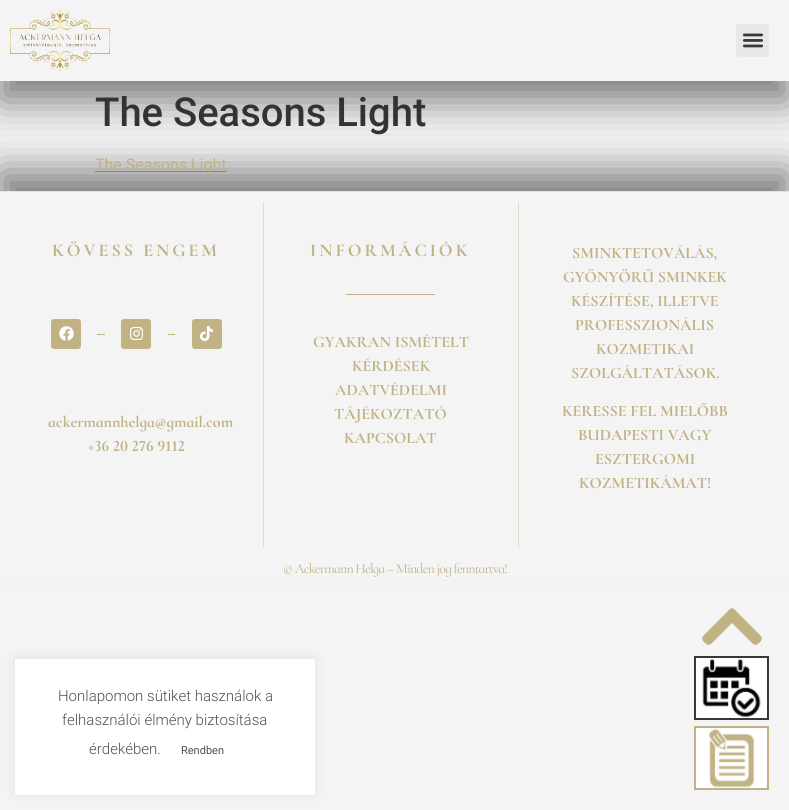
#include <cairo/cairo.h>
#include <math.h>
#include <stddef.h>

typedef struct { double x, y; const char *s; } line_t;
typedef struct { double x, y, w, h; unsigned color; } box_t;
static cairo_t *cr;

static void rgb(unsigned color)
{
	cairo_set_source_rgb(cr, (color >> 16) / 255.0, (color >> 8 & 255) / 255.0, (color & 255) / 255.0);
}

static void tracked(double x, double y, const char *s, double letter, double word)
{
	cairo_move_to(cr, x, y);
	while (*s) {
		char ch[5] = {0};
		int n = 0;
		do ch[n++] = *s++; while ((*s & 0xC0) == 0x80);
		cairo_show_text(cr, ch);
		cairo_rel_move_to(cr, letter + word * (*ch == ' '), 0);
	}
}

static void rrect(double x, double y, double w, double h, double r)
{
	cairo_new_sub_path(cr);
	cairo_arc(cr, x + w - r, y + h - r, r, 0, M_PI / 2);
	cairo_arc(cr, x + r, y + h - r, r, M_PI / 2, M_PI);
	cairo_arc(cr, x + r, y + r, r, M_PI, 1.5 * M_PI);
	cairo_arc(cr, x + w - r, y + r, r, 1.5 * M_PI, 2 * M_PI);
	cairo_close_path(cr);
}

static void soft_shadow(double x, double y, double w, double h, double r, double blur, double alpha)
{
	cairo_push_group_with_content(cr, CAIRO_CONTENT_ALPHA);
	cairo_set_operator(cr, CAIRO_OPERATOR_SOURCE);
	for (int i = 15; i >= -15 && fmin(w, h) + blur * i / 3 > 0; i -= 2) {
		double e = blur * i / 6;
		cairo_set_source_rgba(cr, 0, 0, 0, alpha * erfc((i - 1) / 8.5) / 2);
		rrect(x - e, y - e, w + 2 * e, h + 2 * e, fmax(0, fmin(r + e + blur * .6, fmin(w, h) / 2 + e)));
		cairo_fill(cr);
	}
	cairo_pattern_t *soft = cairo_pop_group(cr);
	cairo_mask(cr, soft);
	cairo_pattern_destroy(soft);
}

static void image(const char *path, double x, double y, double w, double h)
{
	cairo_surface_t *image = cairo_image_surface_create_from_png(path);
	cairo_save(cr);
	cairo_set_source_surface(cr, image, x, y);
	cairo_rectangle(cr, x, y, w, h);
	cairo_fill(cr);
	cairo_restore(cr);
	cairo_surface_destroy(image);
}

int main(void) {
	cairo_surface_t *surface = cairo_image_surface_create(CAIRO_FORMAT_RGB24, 789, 810);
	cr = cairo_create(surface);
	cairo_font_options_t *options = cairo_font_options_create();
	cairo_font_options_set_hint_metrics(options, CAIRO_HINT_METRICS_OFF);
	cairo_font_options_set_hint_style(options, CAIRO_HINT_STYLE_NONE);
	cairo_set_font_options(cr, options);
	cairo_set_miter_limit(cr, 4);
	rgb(0xf4f4f4);
	cairo_paint(cr);
	cairo_save(cr);
	cairo_rectangle(cr, 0, 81, 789, 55);
	cairo_clip(cr);
	rgb(0x000000);
	soft_shadow(0, 20, 789, 81, 0, 20, 0.5);
	cairo_restore(cr);
	image("img/1.png", 10, 10, 100, 61);
	rgb(0xe8e8e8);
	rrect(736, 24, 33, 33, 3);
	cairo_fill(cr);
	image("img/2.png", 742, 33, 22, 15);
	rgb(0xc0b283);
	cairo_rectangle(cr, 95, 171, 131, 1);
	cairo_fill(cr);
	rgb(0x000000);
	soft_shadow(0, 171, 789, 367, 0, 20, 0.5);
	{
		static const box_t items[] = {
			{0, 192, 789, 387, 0xf4f4f4},
			{0, 191, 789, 1, 0xf5dae1},
			{263, 202, 1, 346, 0xe1dcca},
		};
		for (size_t i = 0; i < sizeof items / sizeof *items; i++) {
			rgb(items[i].color);
			cairo_rectangle(cr, items[i].x, items[i].y, items[i].w, items[i].h);
			cairo_fill(cr);
		}
	}
	rgb(0xc0b283);
	rrect(51, 319, 30, 30, 3);
	cairo_fill(cr);
	image("img/3.png", 59, 326, 15, 15);
	cairo_rectangle(cr, 97, 334, 8, 1);
	cairo_fill(cr);
	rrect(121, 319, 30, 30, 3);
	cairo_fill(cr);
	image("img/4.png", 130, 327, 13, 13);
	cairo_rectangle(cr, 168, 334, 7, 1);
	cairo_fill(cr);
	rrect(192, 319, 30, 30, 3);
	cairo_fill(cr);
	image("img/5.png", 200, 326, 14, 15);
	cairo_rectangle(cr, 346, 294, 89, 1);
	cairo_fill(cr);
	rgb(0xe1dcca);
	cairo_rectangle(cr, 518, 202, 1, 346);
	cairo_fill(cr);
	rgb(0xc0b283);
	cairo_new_path(cr);
	cairo_move_to(cr, 734, 609);
	cairo_line_to(cr, 761, 636);
	cairo_curve_to(cr, 762, 637, 762, 639, 761, 641);
	cairo_line_to(cr, 758, 644);
	cairo_curve_to(cr, 757, 645, 754, 645, 753, 644);
	cairo_line_to(cr, 732, 623);
	cairo_line_to(cr, 711, 644);
	cairo_curve_to(cr, 710, 645, 707, 645, 706, 644);
	cairo_line_to(cr, 703, 641);
	cairo_curve_to(cr, 702, 639, 702, 637, 703, 636);
	cairo_line_to(cr, 730, 609);
	cairo_curve_to(cr, 731, 608, 733, 608, 734, 609);
	cairo_close_path(cr);
	cairo_fill(cr);
	image("img/6.png", 696, 658, 71, 60);
	cairo_rectangle(cr, 695, 657, 73, 62);
	rgb(0x373737);
	cairo_stroke(cr);
	image("img/7.png", 696, 728, 71, 60);
	cairo_rectangle(cr, 695, 727, 73, 62);
	rgb(0xc0b283);
	cairo_stroke(cr);
	rgb(0xacabab);
	soft_shadow(15, 658, 300, 136, 0, 5, 0.3);
	rgb(0xffffff);
	cairo_rectangle(cr, 15, 659, 300, 136);
	cairo_fill(cr);
	cairo_select_font_face(cr, "Roboto Medium", CAIRO_FONT_SLANT_NORMAL, CAIRO_FONT_WEIGHT_NORMAL);
	cairo_set_font_size(cr, 40);
	rgb(0x333333);
	cairo_move_to(cr, 95, 126);
	cairo_show_text(cr, "The Seasons Light");
	cairo_select_font_face(cr, "Roboto", CAIRO_FONT_SLANT_NORMAL, CAIRO_FONT_WEIGHT_NORMAL);
	cairo_set_font_size(cr, 16);
	rgb(0xc0b283);
	cairo_move_to(cr, 95, 170);
	cairo_show_text(cr, "The Seasons Light");
	cairo_select_font_face(cr, "Cormorant Infant", CAIRO_FONT_SLANT_NORMAL, CAIRO_FONT_WEIGHT_BOLD);
	cairo_set_font_size(cr, 18);
	tracked(52, 256, "KÖVESS ENGEM", 3, 0);
	cairo_set_font_size(cr, 16);
	cairo_move_to(cr, 48, 427);
	cairo_show_text(cr, "ackermannhelga@gmail.com");
	cairo_move_to(cr, 88, 451);
	cairo_show_text(cr, "+36 20 276 9112");
	cairo_set_font_size(cr, 18);
	tracked(310, 256, "INFORMÁCIÓK", 3, 0);
	cairo_set_font_size(cr, 16);
	{
		static const line_t items[] = {
			{313, 347, "GYAKRAN ISMÉTELT"},
			{352, 371, "KÉRDÉSEK"},
			{335, 395, "ADATVÉDELMI"},
			{334, 419, "TÁJÉKOZTATÓ"},
			{344, 443, "KAPCSOLAT"},
			{572, 258, "SMINKTETOVÁLÁS,"},
			{563, 282, "GYÖNYÖRŰ SMINKEK"},
			{571, 306, "KÉSZÍTÉSE, ILLETVE"},
			{575, 330, "PROFESSZIONÁLIS"},
			{596, 354, "KOZMETIKAI"},
			{571, 378, "SZOLGÁLTATÁSOK."},
			{562, 416, "KERESSE FEL MIELŐBB"},
			{578, 440, "BUDAPESTI VAGY"},
			{595, 464, "ESZTERGOMI"},
			{579, 488, "KOZMETIKÁMAT!"},
		};
		for (size_t i = 0; i < sizeof items / sizeof *items; i++) {
			cairo_move_to(cr, items[i].x, items[i].y);
			cairo_show_text(cr, items[i].s);
		}
	}
	cairo_select_font_face(cr, "Cormorant Infant", CAIRO_FONT_SLANT_NORMAL, CAIRO_FONT_WEIGHT_NORMAL);
	cairo_set_font_size(cr, 14);
	tracked(283, 573, "© Ackermann Helga – Minden jog fenntartva!", -0.8, 0);
	cairo_select_font_face(cr, "Roboto Light", CAIRO_FONT_SLANT_NORMAL, CAIRO_FONT_WEIGHT_NORMAL);
	cairo_set_font_size(cr, 15);
	rgb(0x4f4f4f);
	{
		static const line_t items[] = {
			{58, 701, "Honlapomon sütiket használok a"},
			{62, 725, "felhasználói élmény biztosítása"},
			{89, 754, "érdekében."},
		};
		for (size_t i = 0; i < sizeof items / sizeof *items; i++) {
			cairo_move_to(cr, items[i].x, items[i].y);
			cairo_show_text(cr, items[i].s);
		}
	}
	cairo_select_font_face(cr, "Roboto", CAIRO_FONT_SLANT_NORMAL, CAIRO_FONT_WEIGHT_NORMAL);
	cairo_set_font_size(cr, 11);
	cairo_move_to(cr, 181, 754);
	cairo_show_text(cr, "Rendben");
	cairo_surface_write_to_png(surface, "page.png");
	cairo_font_options_destroy(options);
	cairo_destroy(cr);
	cairo_surface_destroy(surface);
	return 0;
}
